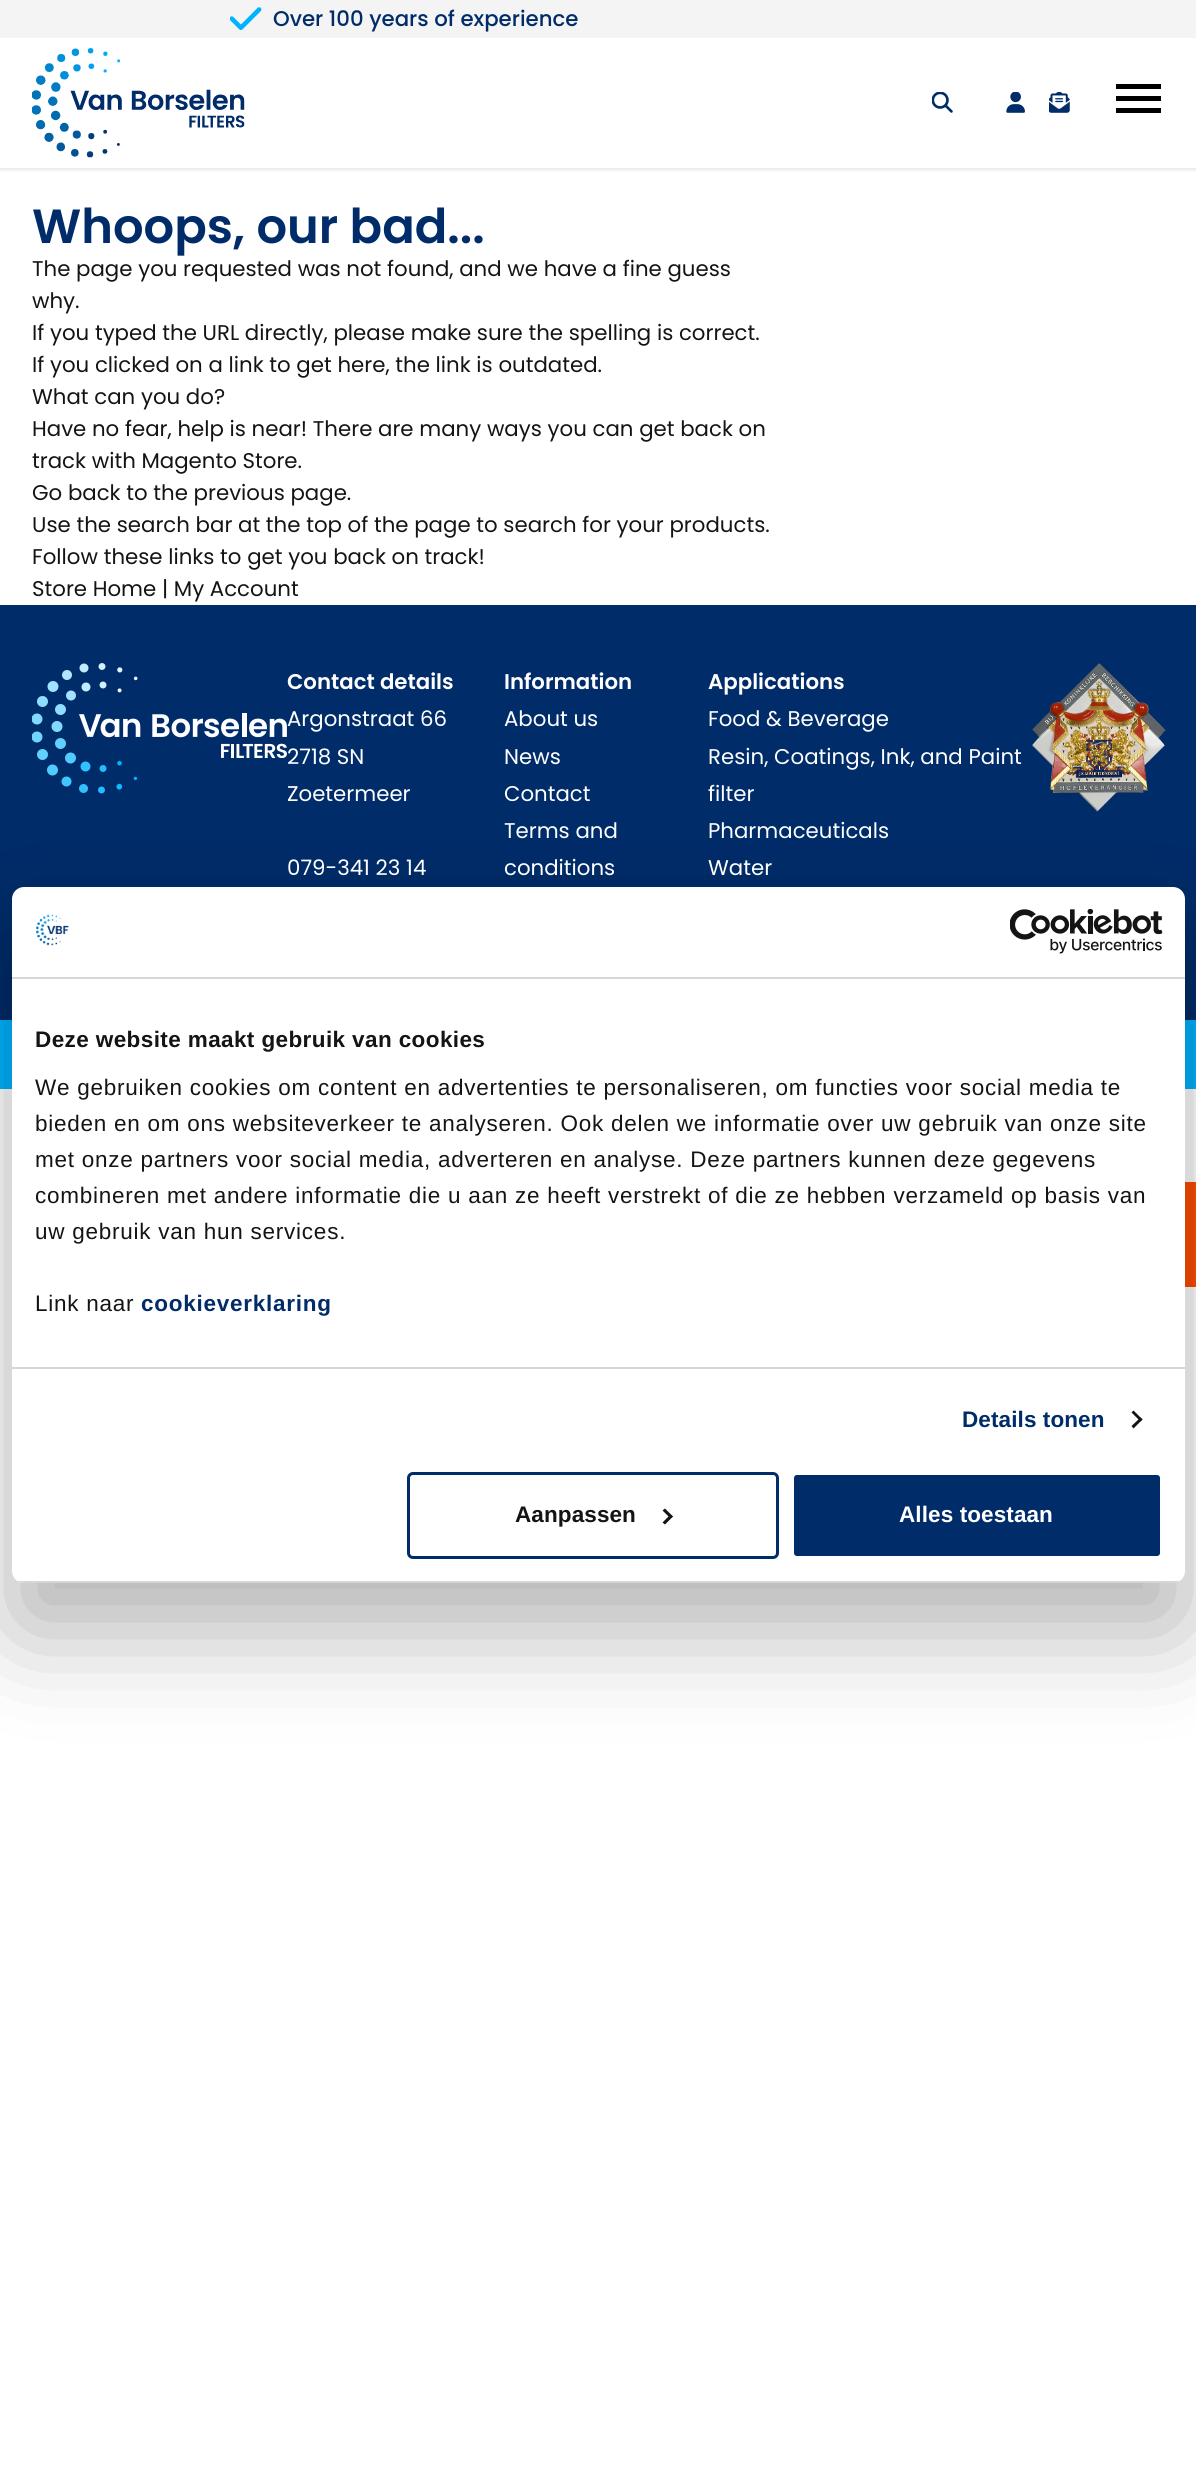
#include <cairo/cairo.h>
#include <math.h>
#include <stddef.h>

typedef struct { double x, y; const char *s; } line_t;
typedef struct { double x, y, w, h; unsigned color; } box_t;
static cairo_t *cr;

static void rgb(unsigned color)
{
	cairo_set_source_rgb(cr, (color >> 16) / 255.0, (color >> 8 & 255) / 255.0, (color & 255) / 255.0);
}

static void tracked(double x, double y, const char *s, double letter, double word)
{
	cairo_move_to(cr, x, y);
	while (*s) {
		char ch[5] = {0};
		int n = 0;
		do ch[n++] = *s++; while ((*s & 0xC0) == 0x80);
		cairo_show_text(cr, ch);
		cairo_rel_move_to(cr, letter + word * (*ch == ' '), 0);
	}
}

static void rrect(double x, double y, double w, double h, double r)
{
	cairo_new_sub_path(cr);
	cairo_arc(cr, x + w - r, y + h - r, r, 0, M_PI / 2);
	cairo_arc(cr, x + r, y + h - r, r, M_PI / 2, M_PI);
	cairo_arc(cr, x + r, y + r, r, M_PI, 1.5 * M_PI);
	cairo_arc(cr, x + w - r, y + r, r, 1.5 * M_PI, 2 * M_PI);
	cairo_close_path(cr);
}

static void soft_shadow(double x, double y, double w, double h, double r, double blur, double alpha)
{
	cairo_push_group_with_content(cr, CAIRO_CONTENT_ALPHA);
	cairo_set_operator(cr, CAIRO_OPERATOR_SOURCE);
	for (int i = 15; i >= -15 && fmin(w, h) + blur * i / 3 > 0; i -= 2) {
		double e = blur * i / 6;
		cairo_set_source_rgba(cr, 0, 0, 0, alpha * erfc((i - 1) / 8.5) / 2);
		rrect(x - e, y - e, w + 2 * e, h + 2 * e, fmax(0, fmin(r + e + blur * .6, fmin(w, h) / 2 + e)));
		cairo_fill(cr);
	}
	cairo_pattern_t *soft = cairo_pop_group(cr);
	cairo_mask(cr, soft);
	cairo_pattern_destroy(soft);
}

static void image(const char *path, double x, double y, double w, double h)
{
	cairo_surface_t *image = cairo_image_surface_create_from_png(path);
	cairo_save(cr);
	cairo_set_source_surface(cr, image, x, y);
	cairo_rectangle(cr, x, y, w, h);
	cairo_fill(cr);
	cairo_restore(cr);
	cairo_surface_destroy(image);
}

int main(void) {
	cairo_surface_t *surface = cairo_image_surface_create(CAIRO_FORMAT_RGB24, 1196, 2467);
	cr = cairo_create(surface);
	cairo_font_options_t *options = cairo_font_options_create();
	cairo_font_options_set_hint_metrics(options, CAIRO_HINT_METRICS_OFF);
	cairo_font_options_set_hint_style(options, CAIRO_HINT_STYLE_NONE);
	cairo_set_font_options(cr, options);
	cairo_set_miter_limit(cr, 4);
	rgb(0xffffff);
	cairo_paint(cr);
	rgb(0xf4f4f4);
	cairo_rectangle(cr, 0, 0, 1196, 38);
	cairo_fill(cr);
	image("img/1.png", 230, 7, 32, 23);
	cairo_save(cr);
	cairo_rectangle(cr, 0, 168, 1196, 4);
	cairo_clip(cr);
	rgb(0x000000);
	soft_shadow(0, 39, 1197, 131, 0, 2, 0.1);
	cairo_restore(cr);
	image("img/2.png", 32, 48, 213, 110);
	image("img/3.png", 932, 92, 21, 21);
	image("img/4.png", 1006, 92, 19, 21);
	image("img/5.png", 1049, 92, 21, 21);
	{
		static const box_t items[] = {
			{1116, 84, 45, 5, 0x000000},
			{1116, 96, 45, 5, 0x000000},
			{1116, 108, 45, 5, 0x000000},
			{0, 605, 1196, 415, 0x002c69},
		};
		for (size_t i = 0; i < sizeof items / sizeof *items; i++) {
			rgb(items[i].color);
			cairo_rectangle(cr, items[i].x, items[i].y, items[i].w, items[i].h);
			cairo_fill(cr);
		}
	}
	image("img/6.png", 32, 663, 255, 131);
	image("img/7.png", 1032, 663, 134, 149);
	rgb(0x00b3ff);
	cairo_rectangle(cr, 0, 1020, 1196, 69);
	cairo_fill(cr);
	rgb(0xff4c00);
	cairo_rectangle(cr, 1185, 1182, 11, 105);
	cairo_fill(cr);
	rgb(0x000000);
	soft_shadow(12, 935, 1173, 696, 12, 51, 0.3);
	rgb(0xffffff);
	rrect(12, 887, 1173, 696, 12);
	cairo_fill(cr);
	rgb(0xd6d6d6);
	cairo_rectangle(cr, 12, 977, 1173, 2);
	cairo_fill(cr);
	image("img/8.png", 36, 914, 33, 32);
	image("img/9.png", 1010, 909, 153, 45);
	cairo_rectangle(cr, 12, 1367, 1173, 2);
	cairo_fill(cr);
	rgb(0x141414);
	cairo_new_path(cr);
	cairo_move_to(cr, 1133.5, 1410.5);
	cairo_line_to(cr, 1142.5, 1419.5);
	cairo_line_to(cr, 1140.5, 1421.5);
	cairo_line_to(cr, 1131.5, 1412.5);
	cairo_close_path(cr);
	cairo_fill(cr);
	cairo_new_path(cr);
	cairo_move_to(cr, 1140.5, 1417.5);
	cairo_line_to(cr, 1142.5, 1419.5);
	cairo_line_to(cr, 1133.5, 1428.5);
	cairo_line_to(cr, 1131.5, 1426);
	cairo_close_path(cr);
	cairo_fill(cr);
	cairo_save(cr);
	rrect(12, 887, 1173, 696, 12);
	cairo_clip(cr);
	rgb(0xd6d6d6);
	cairo_rectangle(cr, 12, 1581, 1173, 2);
	cairo_fill(cr);
	cairo_restore(cr);
	rrect(408.5, 1473.5, 369, 84, 4.5);
	rgb(0x002c69);
	cairo_set_line_width(cr, 3);
	cairo_stroke(cr);
	rgb(0x141414);
	cairo_new_path(cr);
	cairo_move_to(cr, 665, 1508.5);
	cairo_line_to(cr, 673, 1516.5);
	cairo_line_to(cr, 670.5, 1518.5);
	cairo_line_to(cr, 662.5, 1510.5);
	cairo_close_path(cr);
	cairo_fill(cr);
	cairo_new_path(cr);
	cairo_move_to(cr, 670.5, 1514.5);
	cairo_line_to(cr, 673, 1516.5);
	cairo_line_to(cr, 665, 1524.5);
	cairo_line_to(cr, 662.5, 1522.5);
	cairo_close_path(cr);
	cairo_fill(cr);
	rgb(0x002c69);
	rrect(792.5, 1473.5, 369, 84, 4.5);
	cairo_fill_preserve(cr);
	rgb(0xffffff);
	cairo_stroke(cr);
	cairo_select_font_face(cr, "Poppins Medium", CAIRO_FONT_SLANT_NORMAL, CAIRO_FONT_WEIGHT_NORMAL);
	cairo_set_font_size(cr, 21.3);
	rgb(0x002c69);
	cairo_move_to(cr, 273, 26);
	cairo_show_text(cr, "Over 100 years of experience");
	cairo_select_font_face(cr, "Poppins SemiBold", CAIRO_FONT_SLANT_NORMAL, CAIRO_FONT_WEIGHT_NORMAL);
	cairo_set_font_size(cr, 48);
	cairo_move_to(cr, 32, 243);
	cairo_show_text(cr, "Whoops, our bad...");
	cairo_select_font_face(cr, "Poppins", CAIRO_FONT_SLANT_NORMAL, CAIRO_FONT_WEIGHT_NORMAL);
	cairo_set_font_size(cr, 21.3);
	rgb(0x131415);
	{
		static const line_t items[] = {
			{32, 276, "The page you requested was not found, and we have a fine guess"},
			{32, 308, "why."},
			{32, 340, "If you typed the URL directly, please make sure the spelling is correct."},
			{32, 372, "If you clicked on a link to get here, the link is outdated."},
			{32, 404, "What can you do?"},
			{32, 436, "Have no fear, help is near! There are many ways you can get back on"},
			{32, 468, "track with Magento Store."},
			{32, 500, "Go back to the previous page."},
			{32, 532, "Use the search bar at the top of the page to search for your products."},
			{32, 564, "Follow these links to get you back on track!"},
			{32, 596, "Store Home | My Account"},
		};
		for (size_t i = 0; i < sizeof items / sizeof *items; i++) {
			cairo_move_to(cr, items[i].x, items[i].y);
			cairo_show_text(cr, items[i].s);
		}
	}
	cairo_select_font_face(cr, "Poppins SemiBold", CAIRO_FONT_SLANT_NORMAL, CAIRO_FONT_WEIGHT_NORMAL);
	rgb(0xffffff);
	cairo_move_to(cr, 287, 689);
	cairo_show_text(cr, "Contact details");
	cairo_select_font_face(cr, "Poppins", CAIRO_FONT_SLANT_NORMAL, CAIRO_FONT_WEIGHT_NORMAL);
	{
		static const line_t items[] = {
			{287, 726, "Argonstraat 66"},
			{287, 764, "2718 SN"},
			{287, 801, "Zoetermeer"},
			{287, 875, "079-341 23 14"},
		};
		for (size_t i = 0; i < sizeof items / sizeof *items; i++) {
			cairo_move_to(cr, items[i].x, items[i].y);
			cairo_show_text(cr, items[i].s);
		}
	}
	cairo_select_font_face(cr, "Poppins SemiBold", CAIRO_FONT_SLANT_NORMAL, CAIRO_FONT_WEIGHT_NORMAL);
	cairo_move_to(cr, 504, 689);
	cairo_show_text(cr, "Information");
	cairo_select_font_face(cr, "Poppins", CAIRO_FONT_SLANT_NORMAL, CAIRO_FONT_WEIGHT_NORMAL);
	{
		static const line_t items[] = {
			{504, 726, "About us"},
			{504, 764, "News"},
			{504, 801, "Contact"},
			{504, 838, "Terms and"},
			{504, 875, "conditions"},
		};
		for (size_t i = 0; i < sizeof items / sizeof *items; i++) {
			cairo_move_to(cr, items[i].x, items[i].y);
			cairo_show_text(cr, items[i].s);
		}
	}
	cairo_select_font_face(cr, "Poppins SemiBold", CAIRO_FONT_SLANT_NORMAL, CAIRO_FONT_WEIGHT_NORMAL);
	cairo_move_to(cr, 708, 689);
	cairo_show_text(cr, "Applications");
	cairo_select_font_face(cr, "Poppins", CAIRO_FONT_SLANT_NORMAL, CAIRO_FONT_WEIGHT_NORMAL);
	{
		static const line_t items[] = {
			{708, 726, "Food & Beverage"},
			{708, 764, "Resin, Coatings, Ink, and Paint"},
			{708, 801, "filter"},
			{708, 838, "Pharmaceuticals"},
			{708, 875, "Water"},
		};
		for (size_t i = 0; i < sizeof items / sizeof *items; i++) {
			cairo_move_to(cr, items[i].x, items[i].y);
			cairo_show_text(cr, items[i].s);
		}
	}
	cairo_select_font_face(cr, "Liberation Sans", CAIRO_FONT_SLANT_NORMAL, CAIRO_FONT_WEIGHT_BOLD);
	cairo_set_font_size(cr, 22.5);
	rgb(0x131415);
	tracked(35, 1047, "Deze website maakt gebruik van cookies", 0.4, 0);
	cairo_select_font_face(cr, "Liberation Sans", CAIRO_FONT_SLANT_NORMAL, CAIRO_FONT_WEIGHT_NORMAL);
	{
		static const line_t items[] = {
			{35, 1095, "We gebruiken cookies om content en advertenties te personaliseren, om functies voor social media te"},
			{35, 1131, "bieden en om ons websiteverkeer te analyseren. Ook delen we informatie over uw gebruik van onze site"},
			{35, 1167, "met onze partners voor social media, adverteren en analyse. Deze partners kunnen deze gegevens"},
			{35, 1203, "combineren met andere informatie die u aan ze heeft verstrekt of die ze hebben verzameld op basis van"},
			{35, 1239, "uw gebruik van hun services."},
			{35, 1311, "Link naar"},
		};
		for (size_t i = 0; i < sizeof items / sizeof *items; i++) {
			tracked(items[i].x, items[i].y, items[i].s, 0.75, 0);
		}
	}
	cairo_select_font_face(cr, "Liberation Sans", CAIRO_FONT_SLANT_NORMAL, CAIRO_FONT_WEIGHT_BOLD);
	rgb(0x002c69);
	tracked(141, 1311, "cookieverklaring", 0.75, 0);
	tracked(962, 1427, "Details tonen", 0.1, 0);
	rgb(0x131415);
	tracked(515, 1522, "Aanpassen", 0.1, 0);
	rgb(0xffffff);
	tracked(899, 1522, "Alles toestaan", 0.1, 0);
	cairo_surface_write_to_png(surface, "page.png");
	cairo_font_options_destroy(options);
	cairo_destroy(cr);
	cairo_surface_destroy(surface);
	return 0;
}
